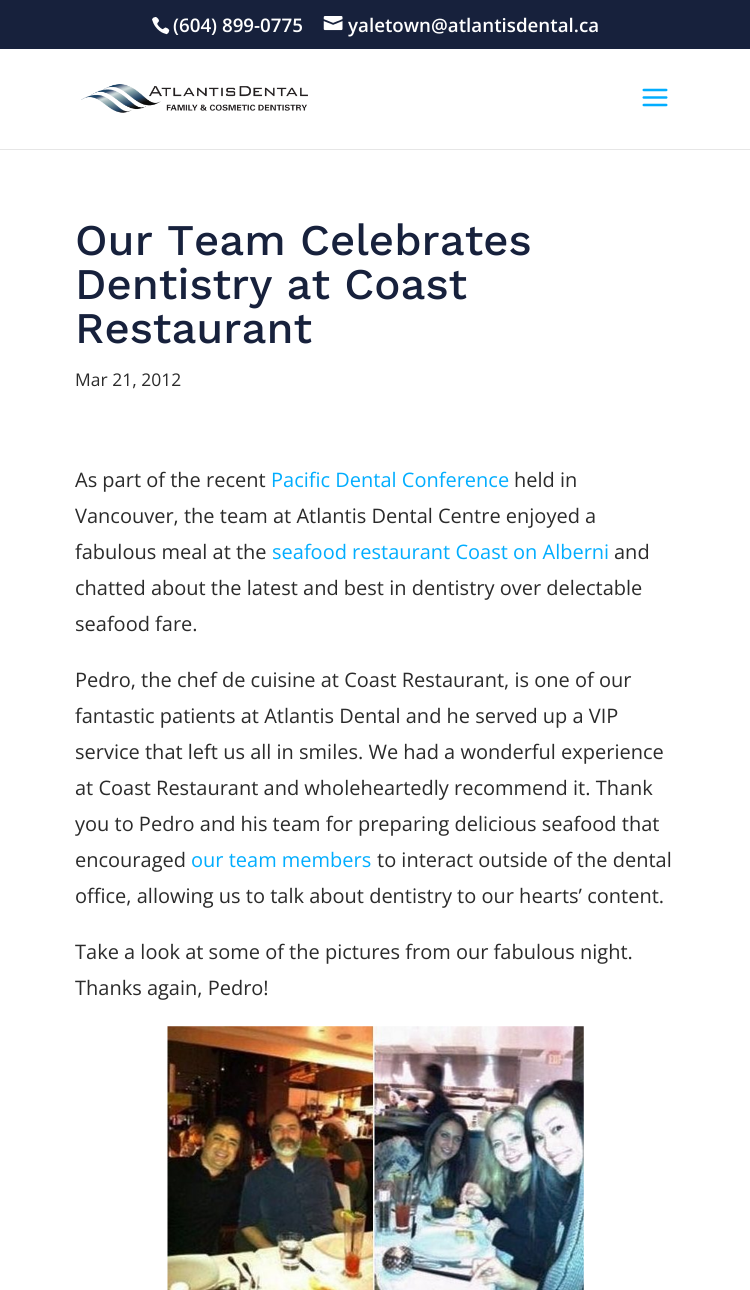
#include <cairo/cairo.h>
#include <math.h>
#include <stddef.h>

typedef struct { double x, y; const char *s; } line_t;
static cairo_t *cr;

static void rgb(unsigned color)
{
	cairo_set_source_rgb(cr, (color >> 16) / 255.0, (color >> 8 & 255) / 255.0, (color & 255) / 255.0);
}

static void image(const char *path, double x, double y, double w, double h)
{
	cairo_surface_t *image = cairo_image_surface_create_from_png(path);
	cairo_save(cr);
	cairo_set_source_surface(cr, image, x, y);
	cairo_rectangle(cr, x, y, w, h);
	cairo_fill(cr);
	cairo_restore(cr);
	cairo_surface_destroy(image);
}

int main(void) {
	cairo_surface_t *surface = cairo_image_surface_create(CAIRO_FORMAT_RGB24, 750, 1290);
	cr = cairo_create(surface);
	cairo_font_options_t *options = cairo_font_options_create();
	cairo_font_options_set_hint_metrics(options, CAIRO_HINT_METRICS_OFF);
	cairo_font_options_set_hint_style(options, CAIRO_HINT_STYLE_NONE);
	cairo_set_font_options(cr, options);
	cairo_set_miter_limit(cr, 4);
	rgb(0xffffff);
	cairo_paint(cr);
	rgb(0x17213c);
	cairo_rectangle(cr, 0, 0, 750, 49);
	cairo_fill(cr);
	image("img/1.png", 152, 17, 18, 18);
	image("img/2.png", 323, 16, 20, 15);
	rgb(0xe6e6e6);
	cairo_rectangle(cr, 0, 149, 750, 1);
	cairo_fill(cr);
	image("img/3.png", 81, 84, 227, 29);
	image("img/4.png", 642, 88, 26, 19);
	image("img/5.png", 167, 1026, 417, 264);
	cairo_select_font_face(cr, "Open Sans SemiBold", CAIRO_FONT_SLANT_NORMAL, CAIRO_FONT_WEIGHT_NORMAL);
	cairo_set_font_size(cr, 18.75);
	rgb(0xffffff);
	cairo_move_to(cr, 173, 32);
	cairo_show_text(cr, "(604) 899-0775");
	cairo_move_to(cr, 348, 32);
	cairo_show_text(cr, "yaletown@atlantisdental.ca");
	cairo_select_font_face(cr, "Work Sans Medium", CAIRO_FONT_SLANT_NORMAL, CAIRO_FONT_WEIGHT_NORMAL);
	cairo_set_font_size(cr, 43.75);
	rgb(0x17213c);
	{
		static const line_t items[] = {
			{75, 255, "Our Team Celebrates"},
			{75, 299, "Dentistry at Coast"},
			{75, 343, "Restaurant"},
		};
		for (size_t i = 0; i < sizeof items / sizeof *items; i++) {
			cairo_move_to(cr, items[i].x, items[i].y);
			cairo_show_text(cr, items[i].s);
		}
	}
	cairo_select_font_face(cr, "Open Sans", CAIRO_FONT_SLANT_NORMAL, CAIRO_FONT_WEIGHT_NORMAL);
	cairo_set_font_size(cr, 17.5);
	rgb(0x2b2b2b);
	cairo_move_to(cr, 75, 386);
	cairo_show_text(cr, "Mar 21, 2012");
	cairo_set_font_size(cr, 20);
	cairo_move_to(cr, 75, 487);
	cairo_show_text(cr, "As part of the recent");
	rgb(0x01adff);
	cairo_move_to(cr, 271, 487);
	cairo_show_text(cr, "Pacific Dental Conference");
	rgb(0x2b2b2b);
	{
		static const line_t items[] = {
			{514, 487, "held in"},
			{75, 523, "Vancouver, the team at Atlantis Dental Centre enjoyed a"},
			{75, 559, "fabulous meal at the"},
		};
		for (size_t i = 0; i < sizeof items / sizeof *items; i++) {
			cairo_move_to(cr, items[i].x, items[i].y);
			cairo_show_text(cr, items[i].s);
		}
	}
	rgb(0x01adff);
	cairo_move_to(cr, 272, 559);
	cairo_show_text(cr, "seafood restaurant Coast on Alberni");
	rgb(0x2b2b2b);
	{
		static const line_t items[] = {
			{614, 559, "and"},
			{75, 595, "chatted about the latest and best in dentistry over delectable"},
			{75, 631, "seafood fare."},
			{75, 687, "Pedro, the chef de cuisine at Coast Restaurant, is one of our"},
			{75, 723, "fantastic patients at Atlantis Dental and he served up a VIP"},
			{75, 759, "service that left us all in smiles. We had a wonderful experience"},
			{75, 795, "at Coast Restaurant and wholeheartedly recommend it. Thank"},
			{75, 831, "you to Pedro and his team for preparing delicious seafood that"},
			{75, 867, "encouraged"},
		};
		for (size_t i = 0; i < sizeof items / sizeof *items; i++) {
			cairo_move_to(cr, items[i].x, items[i].y);
			cairo_show_text(cr, items[i].s);
		}
	}
	rgb(0x01adff);
	cairo_move_to(cr, 191, 867);
	cairo_show_text(cr, "our team members");
	rgb(0x2b2b2b);
	{
		static const line_t items[] = {
			{377, 867, "to interact outside of the dental"},
			{75, 903, "office, allowing us to talk about dentistry to our hearts’ content."},
			{75, 959, "Take a look at some of the pictures from our fabulous night."},
			{75, 995, "Thanks again, Pedro!"},
		};
		for (size_t i = 0; i < sizeof items / sizeof *items; i++) {
			cairo_move_to(cr, items[i].x, items[i].y);
			cairo_show_text(cr, items[i].s);
		}
	}
	cairo_surface_write_to_png(surface, "page.png");
	cairo_font_options_destroy(options);
	cairo_destroy(cr);
	cairo_surface_destroy(surface);
	return 0;
}
